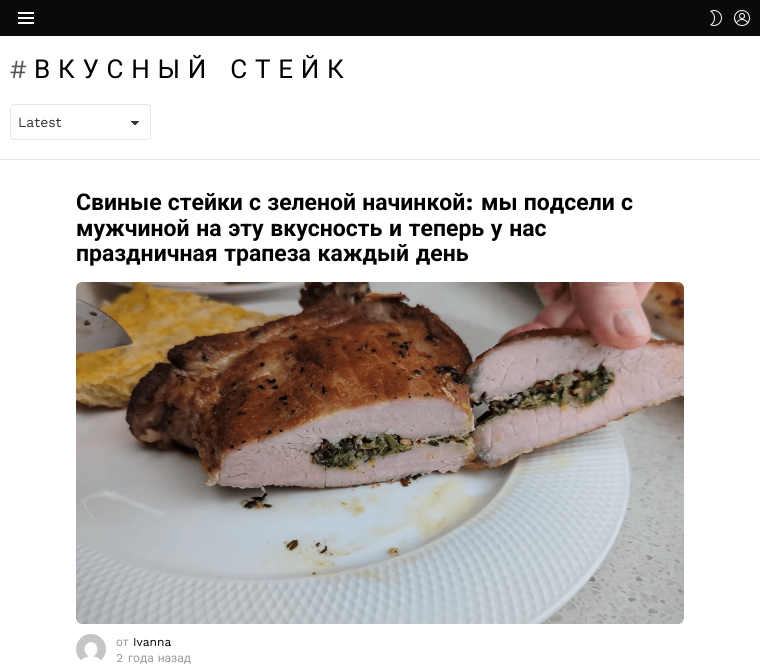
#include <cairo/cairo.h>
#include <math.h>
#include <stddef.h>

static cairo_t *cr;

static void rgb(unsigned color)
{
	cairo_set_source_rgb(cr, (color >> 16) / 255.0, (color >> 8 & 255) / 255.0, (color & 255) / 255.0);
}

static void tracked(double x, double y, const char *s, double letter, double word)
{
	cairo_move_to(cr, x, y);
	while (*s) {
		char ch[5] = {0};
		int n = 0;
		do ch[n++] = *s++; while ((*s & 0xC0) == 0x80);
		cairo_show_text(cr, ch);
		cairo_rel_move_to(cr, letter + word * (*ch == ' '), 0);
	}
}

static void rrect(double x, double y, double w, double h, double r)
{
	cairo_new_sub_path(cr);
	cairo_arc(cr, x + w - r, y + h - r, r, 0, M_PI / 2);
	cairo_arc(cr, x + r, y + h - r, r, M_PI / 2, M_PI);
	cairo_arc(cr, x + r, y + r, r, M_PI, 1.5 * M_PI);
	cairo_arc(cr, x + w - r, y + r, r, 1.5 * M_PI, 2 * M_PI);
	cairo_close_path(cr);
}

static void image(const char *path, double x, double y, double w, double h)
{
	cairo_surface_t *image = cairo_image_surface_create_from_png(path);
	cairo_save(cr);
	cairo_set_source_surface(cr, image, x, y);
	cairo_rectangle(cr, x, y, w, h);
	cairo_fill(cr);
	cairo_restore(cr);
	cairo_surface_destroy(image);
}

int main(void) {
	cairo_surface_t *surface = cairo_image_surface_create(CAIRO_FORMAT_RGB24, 760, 670);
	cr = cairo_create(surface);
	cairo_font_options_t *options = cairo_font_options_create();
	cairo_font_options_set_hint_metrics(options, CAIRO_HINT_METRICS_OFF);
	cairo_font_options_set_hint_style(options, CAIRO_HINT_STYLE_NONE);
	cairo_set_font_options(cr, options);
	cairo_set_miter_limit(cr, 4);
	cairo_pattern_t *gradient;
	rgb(0xffffff);
	cairo_paint(cr);
	rgb(0x0a0a0a);
	cairo_rectangle(cr, 0, 0, 760, 36);
	cairo_fill(cr);
	image("img/1.png", 18, 12, 16, 12);
	image("img/2.png", 710, 10, 12, 16);
	image("img/3.png", 734, 10, 16, 16);
	gradient = cairo_pattern_create_linear(135, 121, 140, 125);
	cairo_pattern_add_color_stop_rgba(gradient, 0.5, 0.2, 0.2, 0.2, 1);
	cairo_pattern_add_color_stop_rgba(gradient, 0.5, 1, 1, 1, 1);
	cairo_set_source(cr, gradient);
	cairo_pattern_destroy(gradient);
	cairo_rectangle(cr, 135, 121, 5, 4);
	cairo_fill(cr);
	gradient = cairo_pattern_create_linear(130, 125, 135, 121);
	cairo_pattern_add_color_stop_rgba(gradient, 0.5, 1, 1, 1, 1);
	cairo_pattern_add_color_stop_rgba(gradient, 0.5, 0.2, 0.2, 0.2, 1);
	cairo_set_source(cr, gradient);
	cairo_pattern_destroy(gradient);
	cairo_rectangle(cr, 130, 121, 5, 4);
	cairo_fill(cr);
	rrect(10.5, 104.5, 140, 35, 3.5);
	rgb(0xe6e6e6);
	cairo_set_line_width(cr, 1);
	cairo_stroke(cr);
	cairo_rectangle(cr, 0, 159, 760, 1);
	cairo_fill(cr);
	image("img/4.png", 76, 282, 608, 342);
	image("img/5.png", 76, 634, 30, 28);
	cairo_select_font_face(cr, "Work Sans", CAIRO_FONT_SLANT_NORMAL, CAIRO_FONT_WEIGHT_NORMAL);
	cairo_set_font_size(cr, 26);
	rgb(0x565656);
	tracked(10, 78, "#", 7.75, 0);
	cairo_select_font_face(cr, "Roboto", CAIRO_FONT_SLANT_NORMAL, CAIRO_FONT_WEIGHT_NORMAL);
	rgb(0x000000);
	tracked(34, 78, "ВКУСНЫЙ СТЕЙК", 7.75, 2);
	cairo_select_font_face(cr, "Work Sans", CAIRO_FONT_SLANT_NORMAL, CAIRO_FONT_WEIGHT_NORMAL);
	cairo_set_font_size(cr, 14);
	rgb(0x333333);
	cairo_move_to(cr, 18, 127);
	cairo_show_text(cr, "Latest");
	cairo_select_font_face(cr, "Roboto", CAIRO_FONT_SLANT_NORMAL, CAIRO_FONT_WEIGHT_BOLD);
	cairo_set_font_size(cr, 23);
	rgb(0x000000);
	tracked(76, 210, "Свиные стейки с зеленой начинкой", 0, 0.5);
	cairo_select_font_face(cr, "Work Sans", CAIRO_FONT_SLANT_NORMAL, CAIRO_FONT_WEIGHT_BOLD);
	cairo_move_to(cr, 466, 210);
	cairo_show_text(cr, ":");
	cairo_select_font_face(cr, "Roboto", CAIRO_FONT_SLANT_NORMAL, CAIRO_FONT_WEIGHT_BOLD);
	tracked(481, 210, "мы подсели с", 0, 0.5);
	tracked(76, 236, "мужчиной на эту вкусность и теперь у нас", 0, 1);
	tracked(76, 261, "праздничная трапеза каждый день", 0, 1);
	cairo_select_font_face(cr, "Roboto", CAIRO_FONT_SLANT_NORMAL, CAIRO_FONT_WEIGHT_NORMAL);
	cairo_set_font_size(cr, 12);
	rgb(0x999999);
	cairo_move_to(cr, 116, 646);
	cairo_show_text(cr, "от");
	cairo_select_font_face(cr, "Work Sans", CAIRO_FONT_SLANT_NORMAL, CAIRO_FONT_WEIGHT_NORMAL);
	rgb(0x000000);
	cairo_move_to(cr, 133, 646);
	cairo_show_text(cr, "Ivanna");
	rgb(0x999999);
	cairo_move_to(cr, 116, 662);
	cairo_show_text(cr, "2");
	cairo_select_font_face(cr, "Roboto", CAIRO_FONT_SLANT_NORMAL, CAIRO_FONT_WEIGHT_NORMAL);
	tracked(128, 662, "года назад", 0, 1);
	cairo_surface_write_to_png(surface, "page.png");
	cairo_font_options_destroy(options);
	cairo_destroy(cr);
	cairo_surface_destroy(surface);
	return 0;
}
